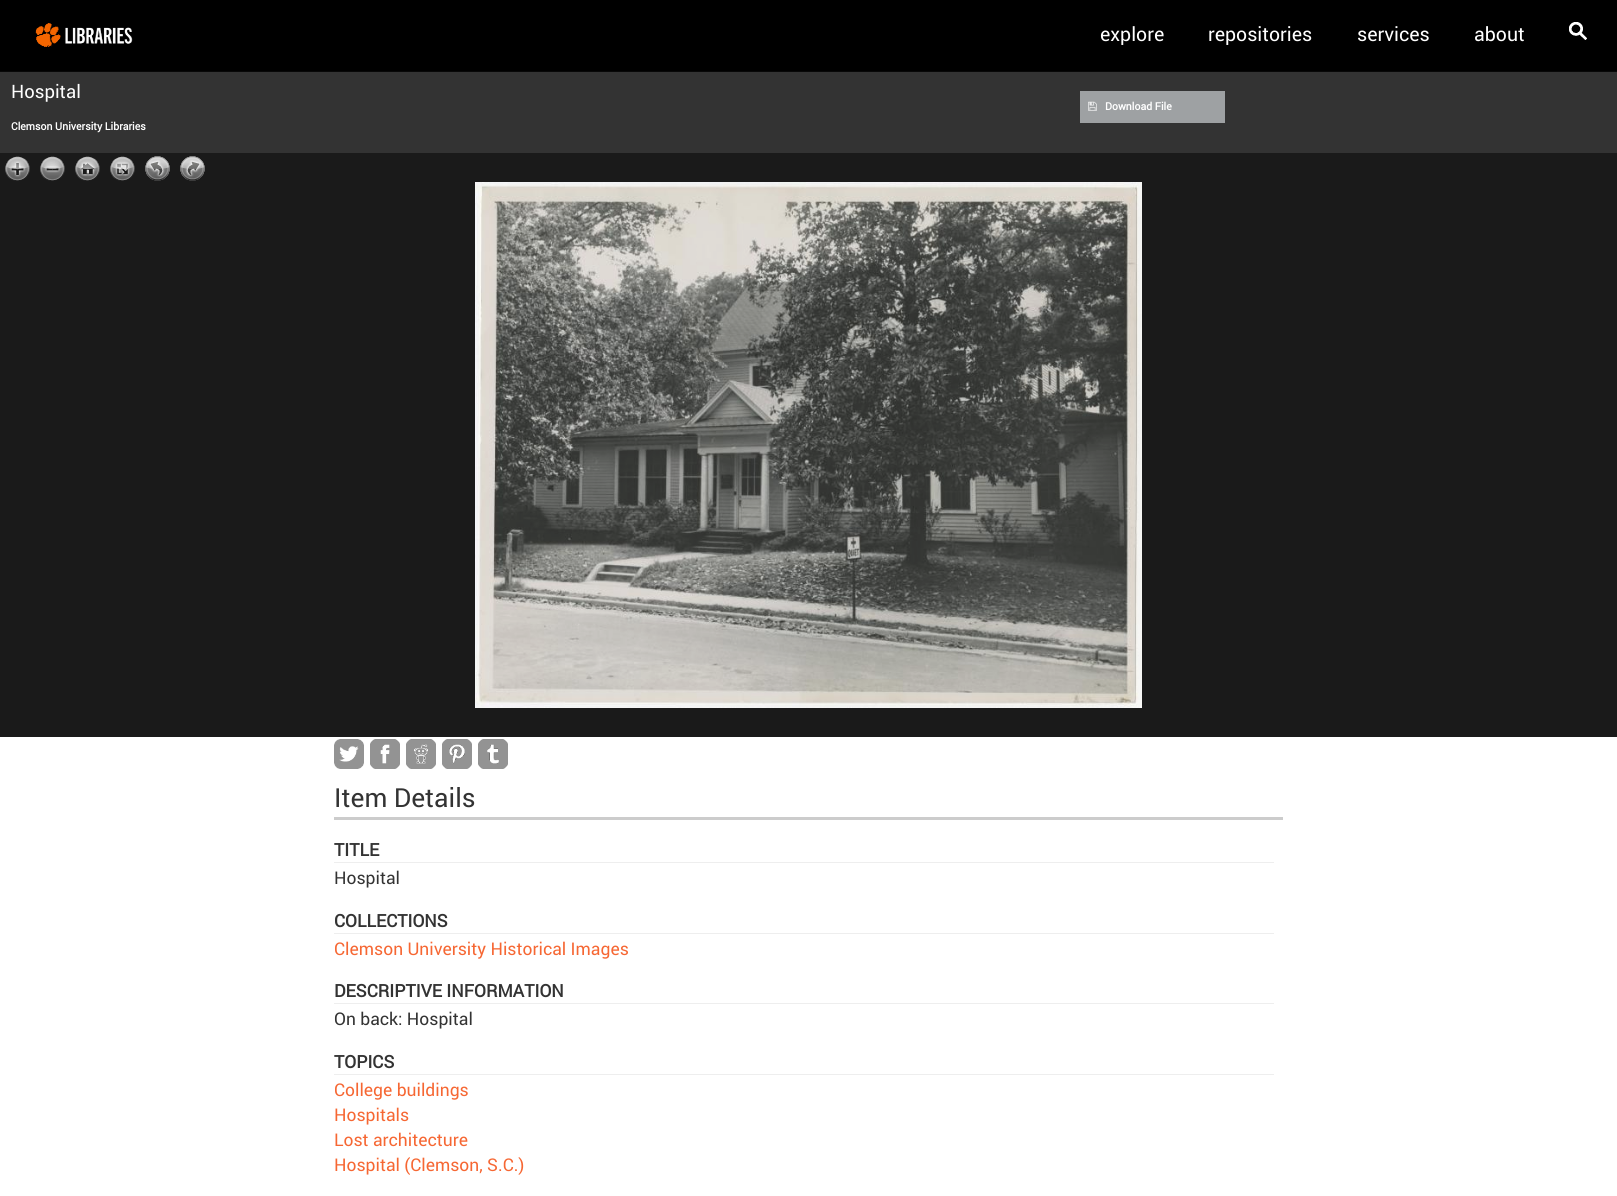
#include <cairo/cairo.h>
#include <math.h>
#include <stddef.h>

typedef struct { double x, y; const char *s; } line_t;
typedef struct { double x, y, w, h; unsigned color; } box_t;
static cairo_t *cr;

static void rgb(unsigned color)
{
	cairo_set_source_rgb(cr, (color >> 16) / 255.0, (color >> 8 & 255) / 255.0, (color & 255) / 255.0);
}

static void image(const char *path, double x, double y, double w, double h)
{
	cairo_surface_t *image = cairo_image_surface_create_from_png(path);
	cairo_save(cr);
	cairo_set_source_surface(cr, image, x, y);
	cairo_rectangle(cr, x, y, w, h);
	cairo_fill(cr);
	cairo_restore(cr);
	cairo_surface_destroy(image);
}

int main(void) {
	cairo_surface_t *surface = cairo_image_surface_create(CAIRO_FORMAT_RGB24, 1617, 1196);
	cr = cairo_create(surface);
	cairo_font_options_t *options = cairo_font_options_create();
	cairo_font_options_set_hint_metrics(options, CAIRO_HINT_METRICS_OFF);
	cairo_font_options_set_hint_style(options, CAIRO_HINT_STYLE_NONE);
	cairo_set_font_options(cr, options);
	cairo_set_miter_limit(cr, 4);
	rgb(0xffffff);
	cairo_paint(cr);
	rgb(0x000000);
	cairo_rectangle(cr, 0, 0, 1617, 71);
	cairo_fill(cr);
	rgb(0x080808);
	cairo_rectangle(cr, 0, 71, 1617, 1);
	cairo_fill(cr);
	image("img/1.png", 35, 23, 98, 24);
	image("img/2.png", 1569, 22, 18, 18);
	rgb(0x333333);
	cairo_rectangle(cr, 0, 72, 1617, 81);
	cairo_fill(cr);
	rgb(0x9ea1a3);
	cairo_rectangle(cr, 1080, 91, 145, 32);
	cairo_fill(cr);
	image("img/3.png", 1088, 101, 9, 10);
	rgb(0x1a1a1a);
	cairo_rectangle(cr, 0, 153, 1617, 584);
	cairo_fill(cr);
	image("img/4.png", 5, 156, 25, 25);
	image("img/5.png", 5, 156, 25, 25);
	image("img/6.png", 40, 156, 25, 25);
	image("img/7.png", 40, 156, 25, 25);
	image("img/8.png", 75, 156, 25, 25);
	image("img/9.png", 75, 156, 25, 25);
	image("img/10.png", 110, 156, 25, 25);
	image("img/11.png", 110, 156, 25, 25);
	image("img/12.png", 145, 156, 25, 25);
	image("img/13.png", 145, 156, 25, 25);
	image("img/14.png", 180, 156, 25, 25);
	image("img/15.png", 180, 156, 25, 25);
	image("img/16.png", 475, 182, 667, 526);
	image("img/17.png", 334, 739, 30, 30);
	image("img/18.png", 370, 739, 30, 30);
	image("img/19.png", 406, 739, 30, 30);
	image("img/20.png", 442, 739, 30, 30);
	image("img/21.png", 478, 739, 30, 30);
	{
		static const box_t items[] = {
			{334, 817, 949, 3, 0xcccccc},
			{334, 862, 940, 1, 0xeeeeee},
			{334, 933, 940, 1, 0xeeeeee},
			{334, 1003, 940, 1, 0xeeeeee},
			{334, 1074, 940, 1, 0xeeeeee},
		};
		for (size_t i = 0; i < sizeof items / sizeof *items; i++) {
			rgb(items[i].color);
			cairo_rectangle(cr, items[i].x, items[i].y, items[i].w, items[i].h);
			cairo_fill(cr);
		}
	}
	cairo_select_font_face(cr, "Roboto", CAIRO_FONT_SLANT_NORMAL, CAIRO_FONT_WEIGHT_NORMAL);
	cairo_set_font_size(cr, 19.5);
	rgb(0xffffff);
	{
		static const line_t items[] = {
			{1100, 41, "explore"},
			{1208, 41, "repositories"},
			{1357, 41, "services"},
			{1474, 41, "about"},
		};
		for (size_t i = 0; i < sizeof items / sizeof *items; i++) {
			cairo_move_to(cr, items[i].x, items[i].y);
			cairo_show_text(cr, items[i].s);
		}
	}
	cairo_set_font_size(cr, 18.5);
	cairo_move_to(cr, 11, 98);
	cairo_show_text(cr, "Hospital");
	cairo_select_font_face(cr, "Roboto", CAIRO_FONT_SLANT_NORMAL, CAIRO_FONT_WEIGHT_BOLD);
	cairo_set_font_size(cr, 10.5);
	cairo_move_to(cr, 11, 130);
	cairo_show_text(cr, "Clemson University Libraries");
	cairo_move_to(cr, 1105, 110);
	cairo_show_text(cr, "Download File");
	cairo_select_font_face(cr, "Roboto", CAIRO_FONT_SLANT_NORMAL, CAIRO_FONT_WEIGHT_NORMAL);
	cairo_set_font_size(cr, 26.25);
	rgb(0x333333);
	cairo_move_to(cr, 334, 807);
	cairo_show_text(cr, "Item Details");
	cairo_select_font_face(cr, "Roboto", CAIRO_FONT_SLANT_NORMAL, CAIRO_FONT_WEIGHT_BOLD);
	cairo_set_font_size(cr, 17.5);
	cairo_move_to(cr, 334, 856);
	cairo_show_text(cr, "TITLE");
	cairo_select_font_face(cr, "Roboto", CAIRO_FONT_SLANT_NORMAL, CAIRO_FONT_WEIGHT_NORMAL);
	cairo_move_to(cr, 334, 884);
	cairo_show_text(cr, "Hospital");
	cairo_select_font_face(cr, "Roboto", CAIRO_FONT_SLANT_NORMAL, CAIRO_FONT_WEIGHT_BOLD);
	cairo_move_to(cr, 334, 927);
	cairo_show_text(cr, "COLLECTIONS");
	cairo_select_font_face(cr, "Roboto", CAIRO_FONT_SLANT_NORMAL, CAIRO_FONT_WEIGHT_NORMAL);
	rgb(0xf66733);
	cairo_move_to(cr, 334, 955);
	cairo_show_text(cr, "Clemson University Historical Images");
	cairo_select_font_face(cr, "Roboto", CAIRO_FONT_SLANT_NORMAL, CAIRO_FONT_WEIGHT_BOLD);
	rgb(0x333333);
	cairo_move_to(cr, 334, 997);
	cairo_show_text(cr, "DESCRIPTIVE INFORMATION");
	cairo_select_font_face(cr, "Roboto", CAIRO_FONT_SLANT_NORMAL, CAIRO_FONT_WEIGHT_NORMAL);
	cairo_move_to(cr, 334, 1025);
	cairo_show_text(cr, "On back: Hospital");
	cairo_select_font_face(cr, "Roboto", CAIRO_FONT_SLANT_NORMAL, CAIRO_FONT_WEIGHT_BOLD);
	cairo_move_to(cr, 334, 1068);
	cairo_show_text(cr, "TOPICS");
	cairo_select_font_face(cr, "Roboto", CAIRO_FONT_SLANT_NORMAL, CAIRO_FONT_WEIGHT_NORMAL);
	rgb(0xf66733);
	{
		static const line_t items[] = {
			{334, 1096, "College buildings"},
			{334, 1121, "Hospitals"},
			{334, 1146, "Lost architecture"},
			{334, 1171, "Hospital (Clemson, S.C.)"},
		};
		for (size_t i = 0; i < sizeof items / sizeof *items; i++) {
			cairo_move_to(cr, items[i].x, items[i].y);
			cairo_show_text(cr, items[i].s);
		}
	}
	cairo_surface_write_to_png(surface, "page.png");
	cairo_font_options_destroy(options);
	cairo_destroy(cr);
	cairo_surface_destroy(surface);
	return 0;
}
